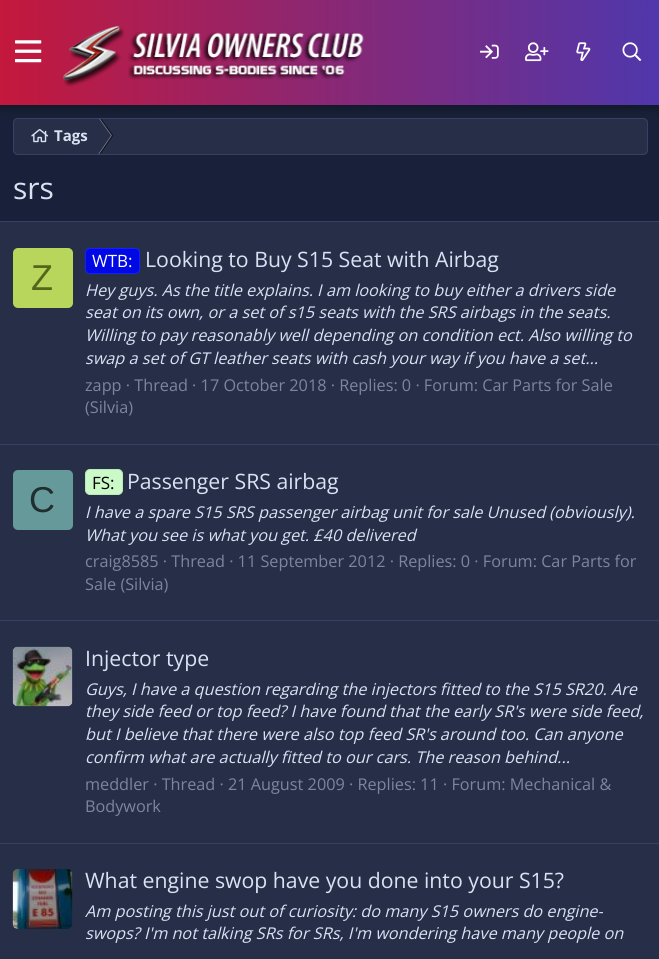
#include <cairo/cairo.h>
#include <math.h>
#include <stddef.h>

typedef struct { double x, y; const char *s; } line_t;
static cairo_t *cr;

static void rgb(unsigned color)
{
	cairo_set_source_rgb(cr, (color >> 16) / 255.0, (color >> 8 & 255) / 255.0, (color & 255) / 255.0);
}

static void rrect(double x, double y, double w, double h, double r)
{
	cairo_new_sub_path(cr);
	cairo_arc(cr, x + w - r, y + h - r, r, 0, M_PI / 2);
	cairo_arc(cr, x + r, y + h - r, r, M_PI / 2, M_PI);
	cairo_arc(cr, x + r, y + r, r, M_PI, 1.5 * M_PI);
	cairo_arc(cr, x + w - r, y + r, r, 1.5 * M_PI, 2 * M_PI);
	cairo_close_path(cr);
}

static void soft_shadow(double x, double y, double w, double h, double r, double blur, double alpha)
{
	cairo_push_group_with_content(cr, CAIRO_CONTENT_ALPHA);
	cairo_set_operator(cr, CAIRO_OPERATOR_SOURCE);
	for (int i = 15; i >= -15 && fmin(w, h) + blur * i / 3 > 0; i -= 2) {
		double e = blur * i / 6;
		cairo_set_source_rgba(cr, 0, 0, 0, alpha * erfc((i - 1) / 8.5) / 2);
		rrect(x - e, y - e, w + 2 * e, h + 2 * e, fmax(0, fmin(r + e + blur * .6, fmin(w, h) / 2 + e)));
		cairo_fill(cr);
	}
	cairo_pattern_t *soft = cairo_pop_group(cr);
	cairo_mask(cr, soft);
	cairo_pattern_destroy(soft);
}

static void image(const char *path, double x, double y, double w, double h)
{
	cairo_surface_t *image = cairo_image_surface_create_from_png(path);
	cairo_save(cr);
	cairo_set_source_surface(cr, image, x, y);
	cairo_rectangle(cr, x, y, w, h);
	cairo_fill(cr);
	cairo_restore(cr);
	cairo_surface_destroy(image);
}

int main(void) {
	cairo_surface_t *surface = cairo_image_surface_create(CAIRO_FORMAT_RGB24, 659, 959);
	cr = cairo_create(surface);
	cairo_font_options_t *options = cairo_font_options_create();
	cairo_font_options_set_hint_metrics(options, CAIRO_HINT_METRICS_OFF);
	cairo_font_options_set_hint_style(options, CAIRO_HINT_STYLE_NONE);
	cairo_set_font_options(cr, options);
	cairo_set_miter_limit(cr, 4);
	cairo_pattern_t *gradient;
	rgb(0x182139);
	cairo_paint(cr);
	rgb(0x272e48);
	rrect(13, 118, 635, 37, 5);
	cairo_fill(cr);
	image("img/7.png", 31, 129, 18, 14);
	rgb(0x797d8e);
	cairo_new_path(cr);
	cairo_move_to(cr, 99.5, 118);
	cairo_line_to(cr, 112, 135.5);
	cairo_line_to(cr, 111, 135.5);
	cairo_line_to(cr, 98.5, 118);
	cairo_close_path(cr);
	cairo_fill(cr);
	cairo_set_source_rgba(cr, 0, 0, 0, 0.5);
	cairo_new_path(cr);
	cairo_move_to(cr, 101, 118);
	cairo_line_to(cr, 113.5, 135.5);
	cairo_line_to(cr, 112, 135.5);
	cairo_line_to(cr, 99.5, 118);
	cairo_close_path(cr);
	cairo_fill(cr);
	rgb(0x797d8e);
	cairo_new_path(cr);
	cairo_move_to(cr, 111, 135.5);
	cairo_line_to(cr, 112, 135.5);
	cairo_line_to(cr, 99, 154.5);
	cairo_line_to(cr, 98, 154.5);
	cairo_close_path(cr);
	cairo_fill(cr);
	cairo_set_source_rgba(cr, 0, 0, 0, 0.5);
	cairo_new_path(cr);
	cairo_move_to(cr, 112, 135.5);
	cairo_line_to(cr, 113.5, 135.5);
	cairo_line_to(cr, 100.5, 154.5);
	cairo_line_to(cr, 99, 154.5);
	cairo_close_path(cr);
	cairo_fill(cr);
	rrect(13.5, 118.5, 634, 36, 4.5);
	rgb(0x374166);
	cairo_set_line_width(cr, 1);
	cairo_stroke(cr);
	rgb(0x000000);
	soft_shadow(-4, -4, 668, 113, 0, 5, 0.3);
	gradient = cairo_pattern_create_linear(0, 53, 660, 52);
	cairo_pattern_add_color_stop_rgba(gradient, 0, 0.769, 0.094, 0.235, 1);
	cairo_pattern_add_color_stop_rgba(gradient, 1, 0.31, 0.216, 0.675, 1);
	cairo_set_source(cr, gradient);
	cairo_pattern_destroy(gradient);
	cairo_rectangle(cr, 0, 0, 659, 105);
	cairo_fill(cr);
	image("img/1.png", 15, 40, 27, 23);
	image("img/2.png", 63, 26, 301, 61);
	image("img/3.png", 480, 44, 19, 15);
	image("img/4.png", 525, 42, 24, 20);
	image("img/5.png", 576, 42, 15, 19);
	image("img/6.png", 622, 42, 20, 19);
	rgb(0x272e48);
	cairo_rectangle(cr, 0, 222, 659, 737);
	cairo_fill(cr);
	rgb(0x374166);
	cairo_rectangle(cr, 0, 221, 659, 1);
	cairo_fill(cr);
	rgb(0xb8d65c);
	rrect(13, 248, 60, 60, 5);
	cairo_fill(cr);
	rgb(0x0008e3);
	rrect(85.5, 248.5, 54, 25, 4.5);
	cairo_fill_preserve(cr);
	rgb(0x171fff);
	cairo_stroke(cr);
	rgb(0x374166);
	cairo_rectangle(cr, 0, 444, 659, 1);
	cairo_fill(cr);
	rgb(0x669999);
	rrect(13, 470, 60, 60, 5);
	cairo_fill(cr);
	rgb(0xccf9c8);
	rrect(85.5, 469.5, 37, 25, 4.5);
	cairo_fill_preserve(cr);
	rgb(0xbee8ba);
	cairo_stroke(cr);
	rgb(0x374166);
	cairo_rectangle(cr, 0, 620, 659, 1);
	cairo_fill(cr);
	image("img/8.png", 12, 646, 61, 61);
	cairo_rectangle(cr, 0, 843, 659, 1);
	cairo_fill(cr);
	image("img/9.png", 12, 869, 61, 60);
	cairo_select_font_face(cr, "Open Sans", CAIRO_FONT_SLANT_NORMAL, CAIRO_FONT_WEIGHT_BOLD);
	cairo_set_font_size(cr, 15);
	rgb(0xdae1f3);
	cairo_move_to(cr, 54, 141);
	cairo_show_text(cr, "Tags");
	cairo_select_font_face(cr, "Open Sans", CAIRO_FONT_SLANT_NORMAL, CAIRO_FONT_WEIGHT_NORMAL);
	cairo_set_font_size(cr, 30);
	cairo_move_to(cr, 13, 199);
	cairo_show_text(cr, "srs");
	cairo_select_font_face(cr, "Liberation Sans", CAIRO_FONT_SLANT_NORMAL, CAIRO_FONT_WEIGHT_NORMAL);
	cairo_set_font_size(cr, 36);
	rgb(0x53661a);
	cairo_move_to(cr, 31, 290);
	cairo_show_text(cr, "Z");
	cairo_select_font_face(cr, "Open Sans", CAIRO_FONT_SLANT_NORMAL, CAIRO_FONT_WEIGHT_NORMAL);
	cairo_set_font_size(cr, 17);
	rgb(0xffffff);
	cairo_move_to(cr, 92, 267);
	cairo_show_text(cr, "WTB:");
	cairo_set_font_size(cr, 21.25);
	rgb(0xdae1f3);
	cairo_move_to(cr, 145, 267);
	cairo_show_text(cr, "Looking to Buy S15 Seat with Airbag");
	cairo_select_font_face(cr, "Open Sans", CAIRO_FONT_SLANT_ITALIC, CAIRO_FONT_WEIGHT_NORMAL);
	cairo_set_font_size(cr, 16.25);
	{
		static const line_t items[] = {
			{85, 296, "Hey guys. As the title explains. I am looking to buy either a drivers side"},
			{85, 318, "seat on its own, or a set of s15 seats with the SRS airbags in the seats."},
			{85, 341, "Willing to pay reasonably well depending on condition ect. Also willing to"},
			{85, 364, "swap a set of GT leather seats with cash your way if you have a set..."},
		};
		for (size_t i = 0; i < sizeof items / sizeof *items; i++) {
			cairo_move_to(cr, items[i].x, items[i].y);
			cairo_show_text(cr, items[i].s);
		}
	}
	cairo_select_font_face(cr, "Open Sans", CAIRO_FONT_SLANT_NORMAL, CAIRO_FONT_WEIGHT_NORMAL);
	rgb(0x7c869d);
	cairo_move_to(cr, 85, 391);
	cairo_show_text(cr, "zapp · Thread · 17 October 2018 · Replies: 0 · Forum: Car Parts for Sale");
	cairo_move_to(cr, 85, 413);
	cairo_show_text(cr, "(Silvia)");
	cairo_select_font_face(cr, "Liberation Sans", CAIRO_FONT_SLANT_NORMAL, CAIRO_FONT_WEIGHT_NORMAL);
	cairo_set_font_size(cr, 36);
	rgb(0x1f2e2e);
	cairo_move_to(cr, 29, 512);
	cairo_show_text(cr, "C");
	cairo_select_font_face(cr, "Open Sans", CAIRO_FONT_SLANT_NORMAL, CAIRO_FONT_WEIGHT_NORMAL);
	cairo_set_font_size(cr, 17);
	rgb(0x000000);
	cairo_move_to(cr, 92, 489);
	cairo_show_text(cr, "FS:");
	cairo_set_font_size(cr, 21.25);
	rgb(0xdae1f3);
	cairo_move_to(cr, 127, 489);
	cairo_show_text(cr, "Passenger SRS airbag");
	cairo_select_font_face(cr, "Open Sans", CAIRO_FONT_SLANT_ITALIC, CAIRO_FONT_WEIGHT_NORMAL);
	cairo_set_font_size(cr, 16.25);
	cairo_move_to(cr, 85, 518);
	cairo_show_text(cr, "I have a spare S15 SRS passenger airbag unit for sale Unused (obviously).");
	cairo_move_to(cr, 85, 541);
	cairo_show_text(cr, "What you see is what you get. £40 delivered");
	cairo_select_font_face(cr, "Open Sans", CAIRO_FONT_SLANT_NORMAL, CAIRO_FONT_WEIGHT_NORMAL);
	rgb(0x7c869d);
	cairo_move_to(cr, 85, 567);
	cairo_show_text(cr, "craig8585 · Thread · 11 September 2012 · Replies: 0 · Forum: Car Parts for");
	cairo_move_to(cr, 85, 590);
	cairo_show_text(cr, "Sale (Silvia)");
	cairo_set_font_size(cr, 21.25);
	rgb(0xdae1f3);
	cairo_move_to(cr, 85, 666);
	cairo_show_text(cr, "Injector type");
	cairo_select_font_face(cr, "Open Sans", CAIRO_FONT_SLANT_ITALIC, CAIRO_FONT_WEIGHT_NORMAL);
	cairo_set_font_size(cr, 16.25);
	{
		static const line_t items[] = {
			{85, 695, "Guys, I have a question regarding the injectors fitted to the S15 SR20. Are"},
			{85, 717, "they side feed or top feed? I have found that the early SR's were side feed,"},
			{85, 740, "but I believe that there were also top feed SR's around too. Can anyone"},
			{85, 763, "confirm what are actually fitted to our cars. The reason behind..."},
		};
		for (size_t i = 0; i < sizeof items / sizeof *items; i++) {
			cairo_move_to(cr, items[i].x, items[i].y);
			cairo_show_text(cr, items[i].s);
		}
	}
	cairo_select_font_face(cr, "Open Sans", CAIRO_FONT_SLANT_NORMAL, CAIRO_FONT_WEIGHT_NORMAL);
	rgb(0x7c869d);
	cairo_move_to(cr, 85, 790);
	cairo_show_text(cr, "meddler · Thread · 21 August 2009 · Replies: 11 · Forum: Mechanical &");
	cairo_move_to(cr, 85, 812);
	cairo_show_text(cr, "Bodywork");
	cairo_set_font_size(cr, 21.25);
	rgb(0xdae1f3);
	cairo_move_to(cr, 85, 888);
	cairo_show_text(cr, "What engine swop have you done into your S15?");
	cairo_select_font_face(cr, "Open Sans", CAIRO_FONT_SLANT_ITALIC, CAIRO_FONT_WEIGHT_NORMAL);
	cairo_set_font_size(cr, 16.25);
	cairo_move_to(cr, 85, 917);
	cairo_show_text(cr, "Am posting this just out of curiosity: do many S15 owners do engine-");
	cairo_move_to(cr, 85, 939);
	cairo_show_text(cr, "swops? I'm not talking SRs for SRs, I'm wondering have many people on");
	cairo_surface_write_to_png(surface, "page.png");
	cairo_font_options_destroy(options);
	cairo_destroy(cr);
	cairo_surface_destroy(surface);
	return 0;
}
